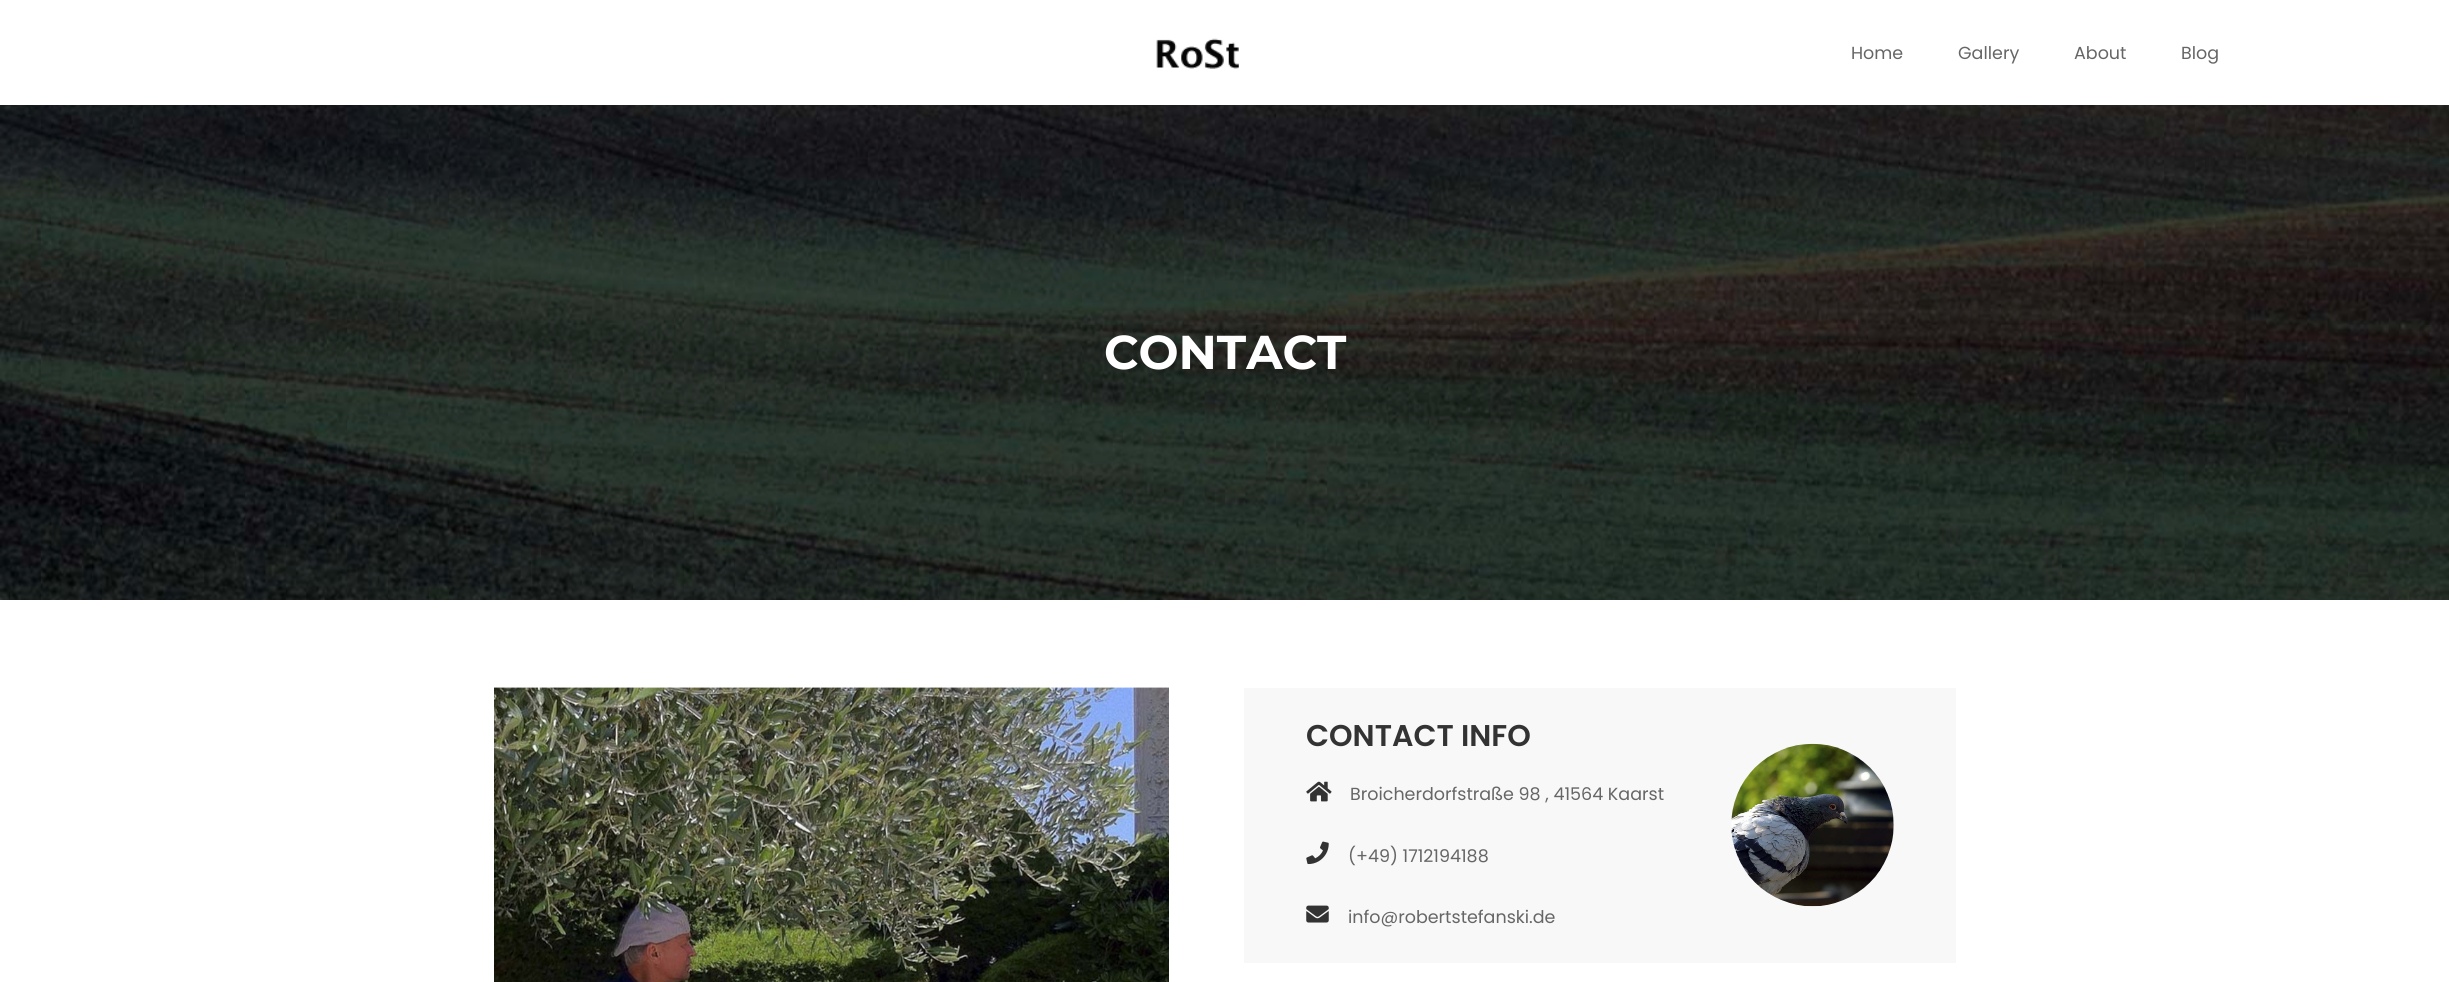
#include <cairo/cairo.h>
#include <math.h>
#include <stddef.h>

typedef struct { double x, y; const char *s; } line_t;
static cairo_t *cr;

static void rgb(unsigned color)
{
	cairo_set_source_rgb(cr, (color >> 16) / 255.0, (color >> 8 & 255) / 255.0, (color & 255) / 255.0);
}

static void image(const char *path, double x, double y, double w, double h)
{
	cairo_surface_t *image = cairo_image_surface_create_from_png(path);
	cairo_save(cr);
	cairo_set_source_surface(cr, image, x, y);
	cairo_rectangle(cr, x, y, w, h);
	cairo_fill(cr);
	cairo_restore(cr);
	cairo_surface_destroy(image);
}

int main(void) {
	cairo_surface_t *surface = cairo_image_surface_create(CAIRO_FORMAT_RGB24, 2449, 982);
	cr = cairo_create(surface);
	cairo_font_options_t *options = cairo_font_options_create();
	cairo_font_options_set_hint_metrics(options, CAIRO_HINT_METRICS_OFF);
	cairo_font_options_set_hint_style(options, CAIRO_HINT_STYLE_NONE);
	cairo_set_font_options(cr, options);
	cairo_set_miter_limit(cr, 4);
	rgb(0xffffff);
	cairo_paint(cr);
	image("img/1.png", 1156, 38, 83, 31);
	image("img/2.png", 0, 105, 2449, 495);
	image("img/3.png", 494, 687, 675, 295);
	rgb(0xf8f8f8);
	cairo_rectangle(cr, 1244, 688, 712, 275);
	cairo_fill(cr);
	image("img/4.png", 1306, 781, 26, 21);
	image("img/5.png", 1306, 841, 23, 24);
	image("img/6.png", 1306, 905, 23, 18);
	image("img/7.png", 1731, 743, 163, 164);
	cairo_select_font_face(cr, "Poppins", CAIRO_FONT_SLANT_NORMAL, CAIRO_FONT_WEIGHT_NORMAL);
	cairo_set_font_size(cr, 17.5);
	rgb(0x666666);
	{
		static const line_t items[] = {
			{1851, 59, "Home"},
			{1958, 59, "Gallery"},
			{2074, 59, "About"},
			{2181, 59, "Blog"},
		};
		for (size_t i = 0; i < sizeof items / sizeof *items; i++) {
			cairo_move_to(cr, items[i].x, items[i].y);
			cairo_show_text(cr, items[i].s);
		}
	}
	cairo_select_font_face(cr, "Montserrat", CAIRO_FONT_SLANT_NORMAL, CAIRO_FONT_WEIGHT_BOLD);
	cairo_set_font_size(cr, 47.5);
	rgb(0xffffff);
	cairo_move_to(cr, 1104, 369);
	cairo_show_text(cr, "CONTACT");
	cairo_select_font_face(cr, "Poppins SemiBold", CAIRO_FONT_SLANT_NORMAL, CAIRO_FONT_WEIGHT_NORMAL);
	cairo_set_font_size(cr, 30);
	rgb(0x333333);
	cairo_move_to(cr, 1306, 746);
	cairo_show_text(cr, "CONTACT INFO");
	cairo_select_font_face(cr, "Poppins", CAIRO_FONT_SLANT_NORMAL, CAIRO_FONT_WEIGHT_NORMAL);
	cairo_set_font_size(cr, 17.5);
	rgb(0x666666);
	{
		static const line_t items[] = {
			{1350, 800, "Broicherdorfstraße 98 , 41564 Kaarst"},
			{1348, 862, "(+49) 1712194188"},
			{1348, 923, "info@robertstefanski.de"},
		};
		for (size_t i = 0; i < sizeof items / sizeof *items; i++) {
			cairo_move_to(cr, items[i].x, items[i].y);
			cairo_show_text(cr, items[i].s);
		}
	}
	cairo_surface_write_to_png(surface, "page.png");
	cairo_font_options_destroy(options);
	cairo_destroy(cr);
	cairo_surface_destroy(surface);
	return 0;
}
